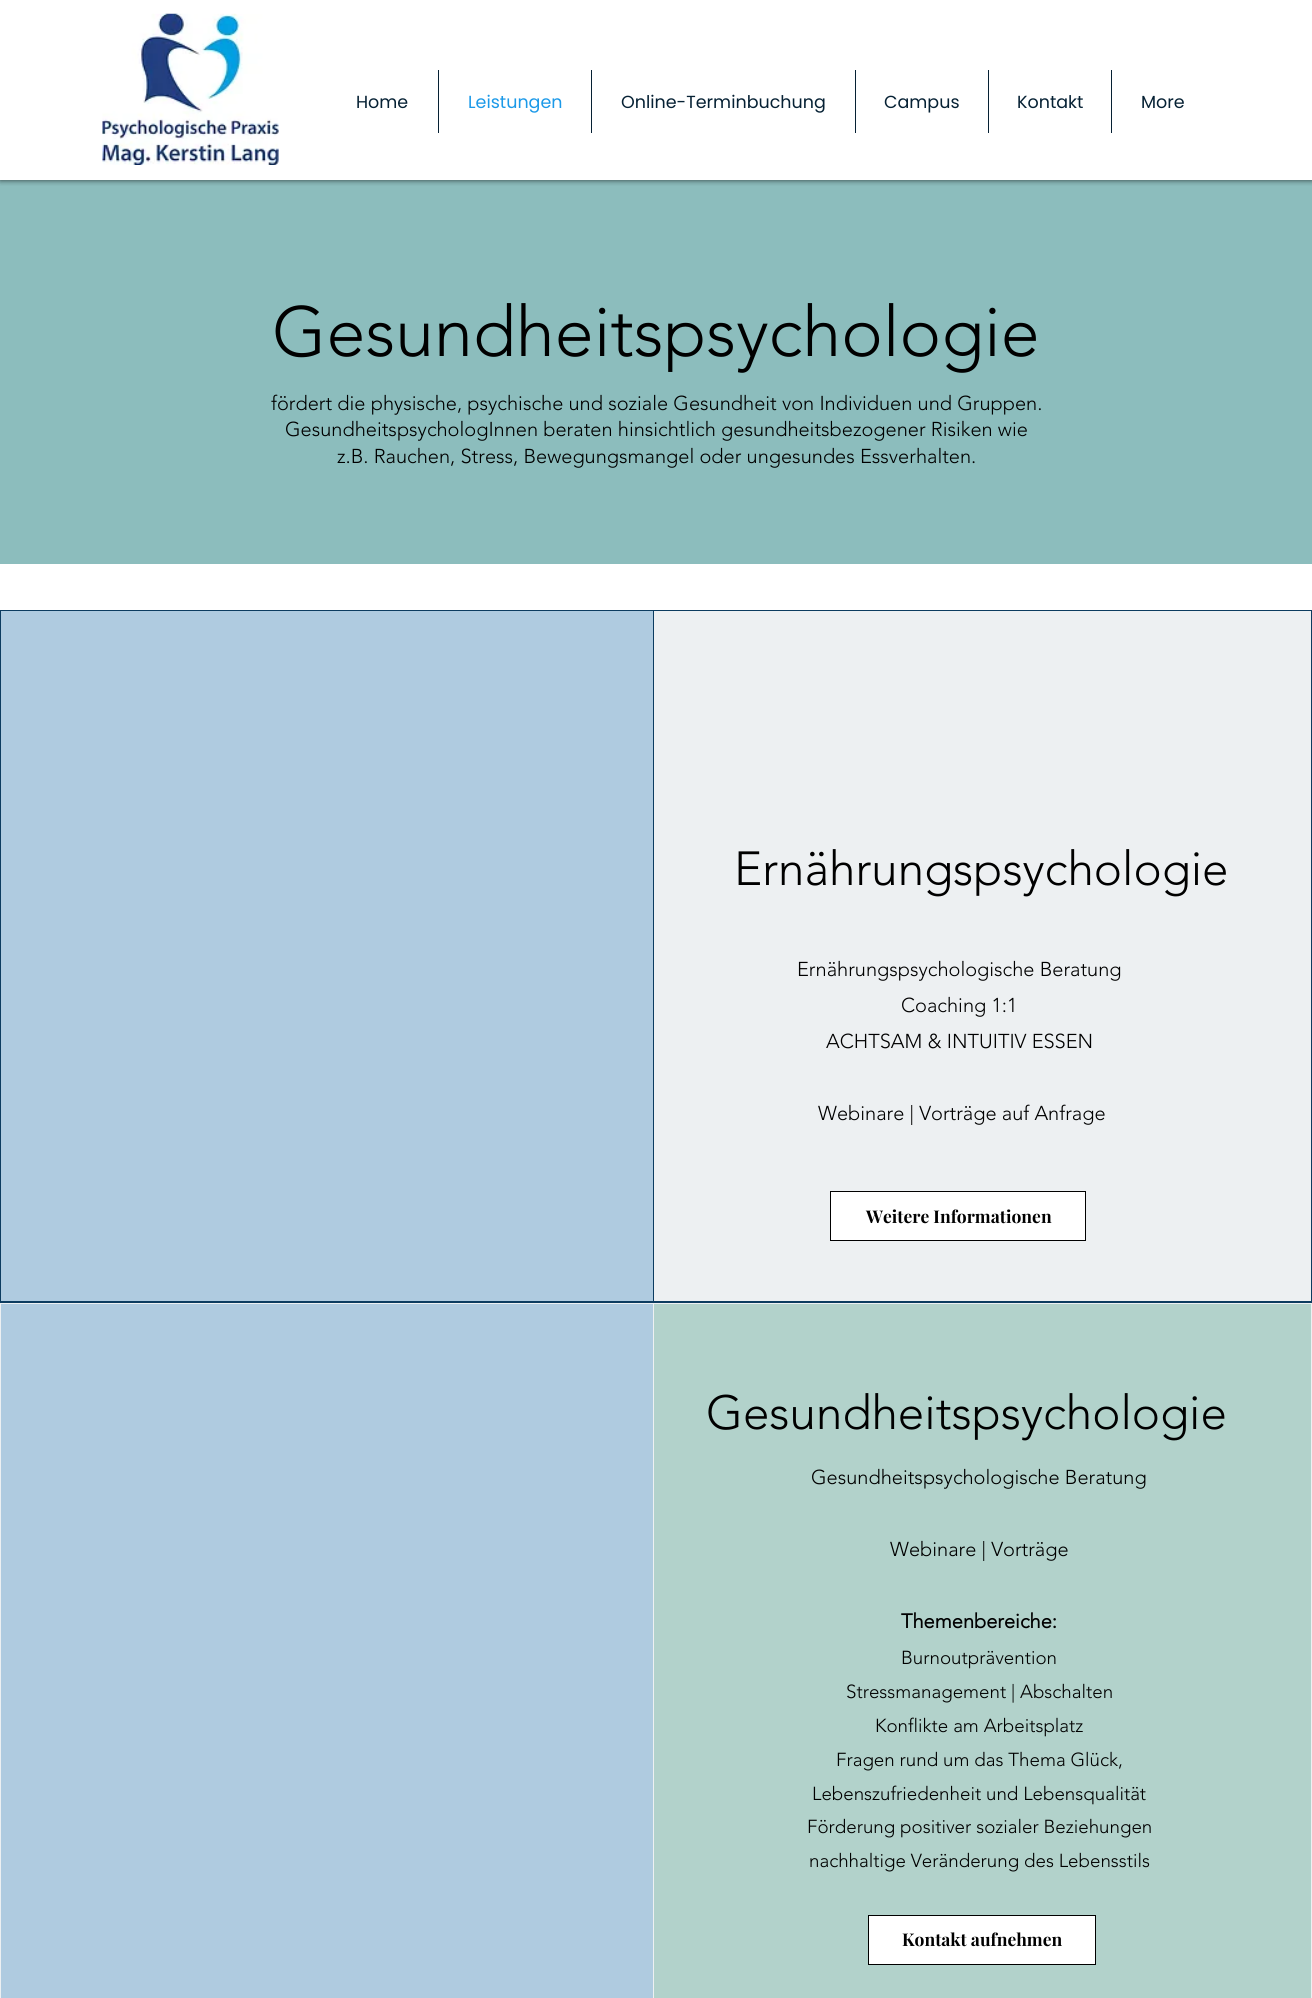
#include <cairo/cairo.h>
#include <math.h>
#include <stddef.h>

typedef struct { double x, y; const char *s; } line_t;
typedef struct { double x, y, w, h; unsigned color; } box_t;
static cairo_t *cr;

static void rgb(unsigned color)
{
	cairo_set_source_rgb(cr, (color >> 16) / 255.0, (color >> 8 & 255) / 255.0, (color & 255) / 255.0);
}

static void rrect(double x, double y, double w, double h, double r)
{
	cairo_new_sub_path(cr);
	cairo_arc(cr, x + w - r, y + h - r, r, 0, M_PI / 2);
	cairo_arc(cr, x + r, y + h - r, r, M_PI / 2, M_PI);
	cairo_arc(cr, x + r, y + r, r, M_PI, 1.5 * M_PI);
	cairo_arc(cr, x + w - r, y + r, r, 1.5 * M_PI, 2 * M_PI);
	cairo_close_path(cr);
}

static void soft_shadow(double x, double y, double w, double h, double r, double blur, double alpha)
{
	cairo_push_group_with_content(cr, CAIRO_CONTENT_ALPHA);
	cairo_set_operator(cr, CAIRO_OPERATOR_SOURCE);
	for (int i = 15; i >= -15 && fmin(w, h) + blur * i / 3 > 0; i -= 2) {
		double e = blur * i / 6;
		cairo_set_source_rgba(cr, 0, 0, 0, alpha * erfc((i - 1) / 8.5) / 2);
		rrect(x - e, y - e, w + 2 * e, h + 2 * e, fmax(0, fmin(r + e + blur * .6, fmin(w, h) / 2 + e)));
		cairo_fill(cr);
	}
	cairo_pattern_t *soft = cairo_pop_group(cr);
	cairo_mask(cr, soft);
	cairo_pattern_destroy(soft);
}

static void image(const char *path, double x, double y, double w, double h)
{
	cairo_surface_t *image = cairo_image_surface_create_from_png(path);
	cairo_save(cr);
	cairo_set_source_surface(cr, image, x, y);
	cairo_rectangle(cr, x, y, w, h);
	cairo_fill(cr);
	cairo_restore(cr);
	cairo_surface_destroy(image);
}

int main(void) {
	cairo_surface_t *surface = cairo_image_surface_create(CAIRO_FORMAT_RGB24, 1312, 1998);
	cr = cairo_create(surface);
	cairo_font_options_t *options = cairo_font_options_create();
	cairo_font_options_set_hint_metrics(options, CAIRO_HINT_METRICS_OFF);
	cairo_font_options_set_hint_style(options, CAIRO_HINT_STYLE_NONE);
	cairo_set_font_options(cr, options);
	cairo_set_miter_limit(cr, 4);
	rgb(0xffffff);
	cairo_paint(cr);
	rgb(0x8cbdbd);
	cairo_rectangle(cr, 0, 180, 1312, 384);
	cairo_fill(cr);
	cairo_save(cr);
	cairo_rectangle(cr, 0, 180, 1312, 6);
	cairo_clip(cr);
	rgb(0x000000);
	soft_shadow(0, 0, 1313, 180, 0, 3, 0.7);
	cairo_restore(cr);
	image("img/1.png", 102, 13, 177, 152);
	{
		static const box_t items[] = {
			{438, 70, 1, 63, 0x062134},
			{591, 70, 1, 63, 0x062134},
			{855, 70, 1, 63, 0x062134},
			{988, 70, 1, 63, 0x062134},
			{1111, 70, 1, 63, 0x062134},
			{0, 610, 1312, 693, 0x0c3c60},
			{1, 611, 652, 690, 0xafcbe0},
			{654, 611, 657, 690, 0xedf0f2},
		};
		for (size_t i = 0; i < sizeof items / sizeof *items; i++) {
			rgb(items[i].color);
			cairo_rectangle(cr, items[i].x, items[i].y, items[i].w, items[i].h);
			cairo_fill(cr);
		}
	}
	rgb(0xffffff);
	cairo_rectangle(cr, 830.5, 1191.5, 255, 49);
	cairo_fill_preserve(cr);
	rgb(0x000000);
	cairo_set_line_width(cr, 1);
	cairo_stroke(cr);
	{
		static const box_t items[] = {
			{0, 1303, 1312, 695, 0xedf0f2},
			{1, 1304, 652, 694, 0xafcbe0},
			{654, 1304, 657, 694, 0xb2d2cb},
		};
		for (size_t i = 0; i < sizeof items / sizeof *items; i++) {
			rgb(items[i].color);
			cairo_rectangle(cr, items[i].x, items[i].y, items[i].w, items[i].h);
			cairo_fill(cr);
		}
	}
	rgb(0xffffff);
	cairo_rectangle(cr, 868.5, 1915.5, 227, 49);
	cairo_fill_preserve(cr);
	rgb(0x000000);
	cairo_stroke(cr);
	cairo_select_font_face(cr, "Poppins", CAIRO_FONT_SLANT_NORMAL, CAIRO_FONT_WEIGHT_NORMAL);
	cairo_set_font_size(cr, 17.5);
	rgb(0x062134);
	cairo_move_to(cr, 356, 108);
	cairo_show_text(cr, "Home");
	rgb(0x1b99e8);
	cairo_move_to(cr, 468, 108);
	cairo_show_text(cr, "Leistungen");
	rgb(0x062134);
	{
		static const line_t items[] = {
			{621, 108, "Online-Terminbuchung"},
			{884, 108, "Campus"},
			{1017, 108, "Kontakt"},
			{1141, 108, "More"},
		};
		for (size_t i = 0; i < sizeof items / sizeof *items; i++) {
			cairo_move_to(cr, items[i].x, items[i].y);
			cairo_show_text(cr, items[i].s);
		}
	}
	cairo_select_font_face(cr, "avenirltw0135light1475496 Light", CAIRO_FONT_SLANT_NORMAL, CAIRO_FONT_WEIGHT_NORMAL);
	cairo_set_font_size(cr, 70);
	rgb(0x000000);
	cairo_move_to(cr, 272, 356);
	cairo_show_text(cr, "Gesundheitspsychologie");
	cairo_set_font_size(cr, 20);
	{
		static const line_t items[] = {
			{271, 410, "fördert die physische, psychische und soziale Gesundheit von Individuen und Gruppen."},
			{285, 436, "GesundheitspsychologInnen beraten hinsichtlich gesundheitsbezogener Risiken wie"},
			{337, 463, "z.B. Rauchen, Stress, Bewegungsmangel oder ungesundes Essverhalten."},
		};
		for (size_t i = 0; i < sizeof items / sizeof *items; i++) {
			cairo_move_to(cr, items[i].x, items[i].y);
			cairo_show_text(cr, items[i].s);
		}
	}
	cairo_set_font_size(cr, 47.5);
	cairo_move_to(cr, 734, 885);
	cairo_show_text(cr, "Ernährungspsychologie");
	cairo_set_font_size(cr, 20);
	{
		static const line_t items[] = {
			{797, 976, "Ernährungspsychologische Beratung"},
			{901, 1012, "Coaching 1:1"},
			{826, 1048, "ACHTSAM & INTUITIV ESSEN"},
			{818, 1120, "Webinare | Vorträge auf Anfrage"},
		};
		for (size_t i = 0; i < sizeof items / sizeof *items; i++) {
			cairo_move_to(cr, items[i].x, items[i].y);
			cairo_show_text(cr, items[i].s);
		}
	}
	cairo_select_font_face(cr, "Playfair Display", CAIRO_FONT_SLANT_NORMAL, CAIRO_FONT_WEIGHT_BOLD);
	cairo_set_font_size(cr, 17.5);
	cairo_move_to(cr, 866, 1223);
	cairo_show_text(cr, "Weitere Informationen");
	cairo_select_font_face(cr, "avenirltw0135light1475496 Light", CAIRO_FONT_SLANT_NORMAL, CAIRO_FONT_WEIGHT_NORMAL);
	cairo_set_font_size(cr, 47.5);
	cairo_move_to(cr, 706, 1429);
	cairo_show_text(cr, "Gesundheitspsychologie");
	cairo_set_font_size(cr, 20);
	cairo_move_to(cr, 811, 1484);
	cairo_show_text(cr, "Gesundheitspsychologische Beratung");
	cairo_move_to(cr, 890, 1556);
	cairo_show_text(cr, "Webinare | Vorträge");
	cairo_select_font_face(cr, "avenirltw0135light1475496", CAIRO_FONT_SLANT_NORMAL, CAIRO_FONT_WEIGHT_BOLD);
	cairo_move_to(cr, 901, 1628);
	cairo_show_text(cr, "Themenbereiche:");
	cairo_select_font_face(cr, "avenirltw0135light1475496 Light", CAIRO_FONT_SLANT_NORMAL, CAIRO_FONT_WEIGHT_NORMAL);
	cairo_set_font_size(cr, 18.75);
	{
		static const line_t items[] = {
			{901, 1664, "Burnoutprävention"},
			{846, 1698, "Stressmanagement | Abschalten"},
			{875, 1732, "Konflikte am Arbeitsplatz"},
			{836, 1766, "Fragen rund um das Thema Glück,"},
			{812, 1800, "Lebenszufriedenheit und Lebensqualität"},
			{807, 1833, "Förderung positiver sozialer Beziehungen"},
			{809, 1867, "nachhaltige Veränderung des Lebensstils"},
		};
		for (size_t i = 0; i < sizeof items / sizeof *items; i++) {
			cairo_move_to(cr, items[i].x, items[i].y);
			cairo_show_text(cr, items[i].s);
		}
	}
	cairo_select_font_face(cr, "Playfair Display", CAIRO_FONT_SLANT_NORMAL, CAIRO_FONT_WEIGHT_BOLD);
	cairo_set_font_size(cr, 17.5);
	cairo_move_to(cr, 902, 1946);
	cairo_show_text(cr, "Kontakt aufnehmen");
	cairo_surface_write_to_png(surface, "page.png");
	cairo_font_options_destroy(options);
	cairo_destroy(cr);
	cairo_surface_destroy(surface);
	return 0;
}
